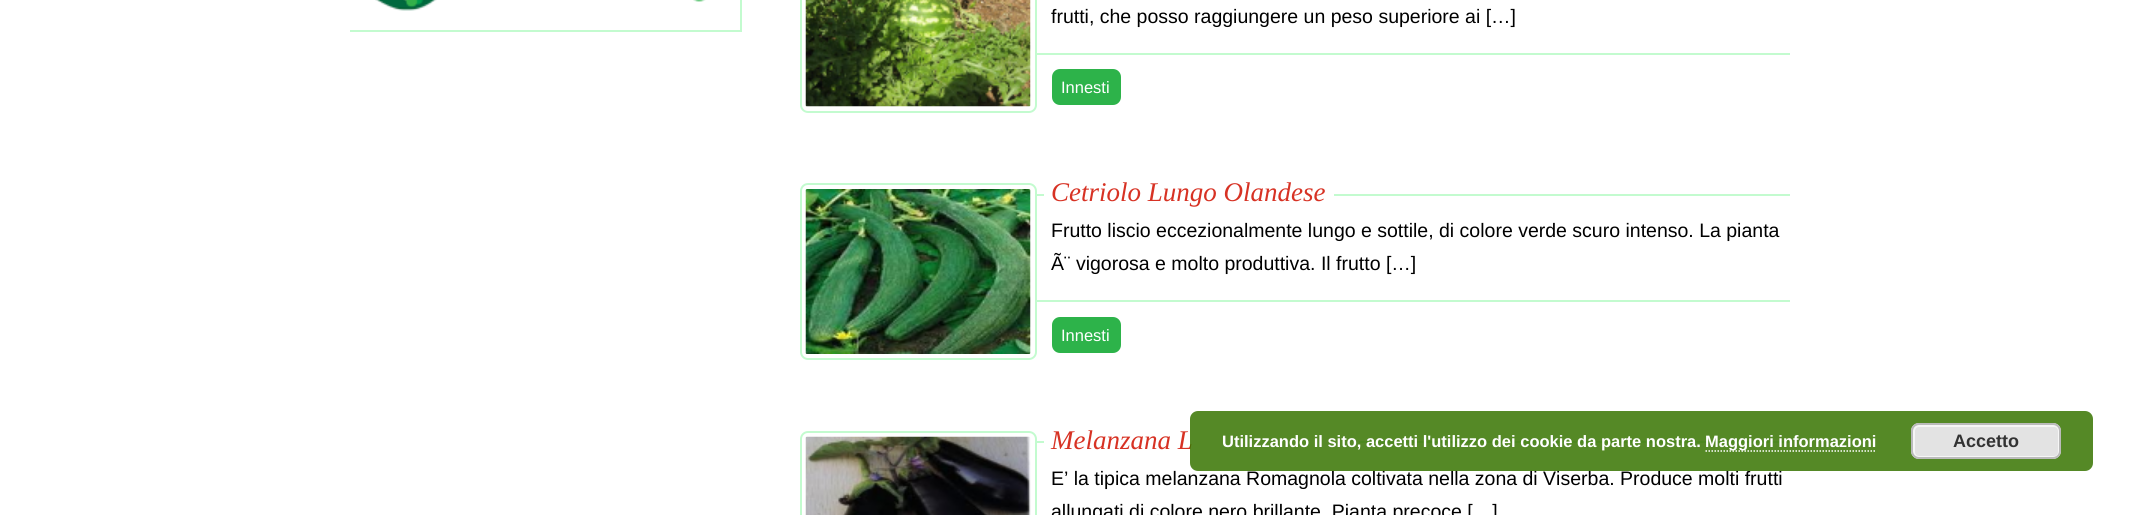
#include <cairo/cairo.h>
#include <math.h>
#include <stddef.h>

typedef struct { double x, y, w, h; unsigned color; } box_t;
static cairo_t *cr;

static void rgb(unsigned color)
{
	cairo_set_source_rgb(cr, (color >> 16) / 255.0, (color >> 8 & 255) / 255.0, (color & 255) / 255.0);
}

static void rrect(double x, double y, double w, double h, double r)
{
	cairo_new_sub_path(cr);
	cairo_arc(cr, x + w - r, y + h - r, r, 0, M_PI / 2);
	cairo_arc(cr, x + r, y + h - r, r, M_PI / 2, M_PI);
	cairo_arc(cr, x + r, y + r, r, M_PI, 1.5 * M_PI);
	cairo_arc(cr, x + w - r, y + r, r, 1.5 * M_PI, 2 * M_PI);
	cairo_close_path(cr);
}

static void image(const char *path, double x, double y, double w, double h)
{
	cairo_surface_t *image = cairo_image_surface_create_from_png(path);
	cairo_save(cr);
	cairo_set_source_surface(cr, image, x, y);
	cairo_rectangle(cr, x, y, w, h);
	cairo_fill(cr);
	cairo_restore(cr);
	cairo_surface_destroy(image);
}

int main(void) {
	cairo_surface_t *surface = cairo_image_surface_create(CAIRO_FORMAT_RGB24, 2137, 515);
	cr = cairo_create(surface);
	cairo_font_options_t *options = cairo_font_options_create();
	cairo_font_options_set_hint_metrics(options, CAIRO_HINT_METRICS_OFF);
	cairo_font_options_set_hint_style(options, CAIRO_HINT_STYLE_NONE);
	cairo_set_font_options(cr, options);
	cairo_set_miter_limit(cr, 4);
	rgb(0xffffff);
	cairo_paint(cr);
	rgb(0xc3fbcf);
	cairo_rectangle(cr, 740, 0, 2, 32);
	cairo_fill(cr);
	image("img/1.png", 693, 0, 13, 2);
	cairo_rectangle(cr, 350, 30, 390, 2);
	cairo_fill(cr);
	image("img/2.png", 375, 0, 62, 11);
	rrect(801, -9, 235, 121, 7);
	cairo_stroke(cr);
	image("img/3.png", 805, 0, 226, 107);
	cairo_rectangle(cr, 1037, 53, 753, 2);
	cairo_fill(cr);
	rgb(0x2db34a);
	rrect(1052, 69, 69, 36, 8);
	cairo_fill(cr);
	rrect(801, 184, 235, 175, 7);
	rgb(0xc3fbcf);
	cairo_stroke(cr);
	image("img/4.png", 805, 189, 226, 165);
	{
		static const box_t items[] = {
			{1037, 194, 753, 2, 0xc3fbcf},
			{1044, 194, 290, 2, 0xffffff},
			{1037, 300, 753, 2, 0xc3fbcf},
		};
		for (size_t i = 0; i < sizeof items / sizeof *items; i++) {
			rgb(items[i].color);
			cairo_rectangle(cr, items[i].x, items[i].y, items[i].w, items[i].h);
			cairo_fill(cr);
		}
	}
	rgb(0x2db34a);
	rrect(1052, 317, 69, 36, 8);
	cairo_fill(cr);
	rrect(801, 432, 235, 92, 7);
	rgb(0xc3fbcf);
	cairo_stroke(cr);
	image("img/5.png", 805, 436, 226, 79);
	cairo_rectangle(cr, 1037, 441, 753, 2);
	cairo_fill(cr);
	rgb(0xffffff);
	cairo_rectangle(cr, 1044, 441, 315, 2);
	cairo_fill(cr);
	cairo_select_font_face(cr, "Liberation Sans", CAIRO_FONT_SLANT_NORMAL, CAIRO_FONT_WEIGHT_NORMAL);
	cairo_set_font_size(cr, 19.5);
	rgb(0x000000);
	cairo_move_to(cr, 1051, 23);
	cairo_show_text(cr, "frutti, che posso raggiungere un peso superiore ai […]");
	cairo_set_font_size(cr, 16.5);
	rgb(0xffffff);
	cairo_move_to(cr, 1061, 93);
	cairo_show_text(cr, "Innesti");
	cairo_select_font_face(cr, "Liberation Serif", CAIRO_FONT_SLANT_ITALIC, CAIRO_FONT_WEIGHT_NORMAL);
	cairo_set_font_size(cr, 27);
	rgb(0xd73224);
	cairo_move_to(cr, 1051, 201);
	cairo_show_text(cr, "Cetriolo Lungo Olandese");
	cairo_select_font_face(cr, "Liberation Sans", CAIRO_FONT_SLANT_NORMAL, CAIRO_FONT_WEIGHT_NORMAL);
	cairo_set_font_size(cr, 19.5);
	rgb(0x000000);
	cairo_move_to(cr, 1051, 237);
	cairo_show_text(cr, "Frutto liscio eccezionalmente lungo e sottile, di colore verde scuro intenso. La pianta");
	cairo_move_to(cr, 1051, 270);
	cairo_show_text(cr, "Ã¨ vigorosa e molto produttiva. Il frutto […]");
	cairo_set_font_size(cr, 16.5);
	rgb(0xffffff);
	cairo_move_to(cr, 1061, 341);
	cairo_show_text(cr, "Innesti");
	cairo_select_font_face(cr, "Liberation Serif", CAIRO_FONT_SLANT_ITALIC, CAIRO_FONT_WEIGHT_NORMAL);
	cairo_set_font_size(cr, 27);
	rgb(0xd73224);
	cairo_move_to(cr, 1051, 449);
	cairo_show_text(cr, "Melanzana L");
	cairo_select_font_face(cr, "Liberation Sans", CAIRO_FONT_SLANT_NORMAL, CAIRO_FONT_WEIGHT_NORMAL);
	cairo_set_font_size(cr, 19.5);
	rgb(0x000000);
	cairo_move_to(cr, 1051, 485);
	cairo_show_text(cr, "E’ la tipica melanzana Romagnola coltivata nella zona di Viserba. Produce molti frutti");
	cairo_move_to(cr, 1051, 518);
	cairo_show_text(cr, "allungati di colore nero brillante. Pianta precoce […]");
	cairo_set_source_rgba(cr, 0.22, 0.459, 0, 0.85);
	rrect(1190, 411, 903, 60, 8);
	cairo_fill(cr);
	cairo_select_font_face(cr, "Liberation Sans", CAIRO_FONT_SLANT_NORMAL, CAIRO_FONT_WEIGHT_BOLD);
	cairo_set_font_size(cr, 16.5);
	rgb(0xffffff);
	cairo_move_to(cr, 1222, 447);
	cairo_show_text(cr, "Utilizzando il sito, accetti l'utilizzo dei cookie da parte nostra.");
	cairo_new_path(cr);
	cairo_move_to(cr, 1705.5, 451);
	cairo_line_to(cr, 1876.5, 451);
	cairo_set_line_width(cr, 1.5);
	cairo_set_dash(cr, (double[]){1.5, 1.5}, 2, 0);
	cairo_stroke(cr);
	cairo_move_to(cr, 1705, 447);
	cairo_show_text(cr, "Maggiori informazioni");
	rgb(0xe3e3e3);
	rrect(1911, 423, 150, 36, 8);
	cairo_fill(cr);
	rrect(1914, 426, 145, 31, 5);
	rgb(0xf6f6f6);
	cairo_set_line_width(cr, 2);
	cairo_set_dash(cr, NULL, 0, 0);
	cairo_stroke(cr);
	rrect(1912, 424, 148, 34, 7);
	rgb(0xbbbbbb);
	cairo_stroke(cr);
	cairo_set_font_size(cr, 18);
	rgb(0x333333);
	cairo_move_to(cr, 1953, 447);
	cairo_show_text(cr, "Accetto");
	cairo_surface_write_to_png(surface, "page.png");
	cairo_font_options_destroy(options);
	cairo_destroy(cr);
	cairo_surface_destroy(surface);
	return 0;
}
